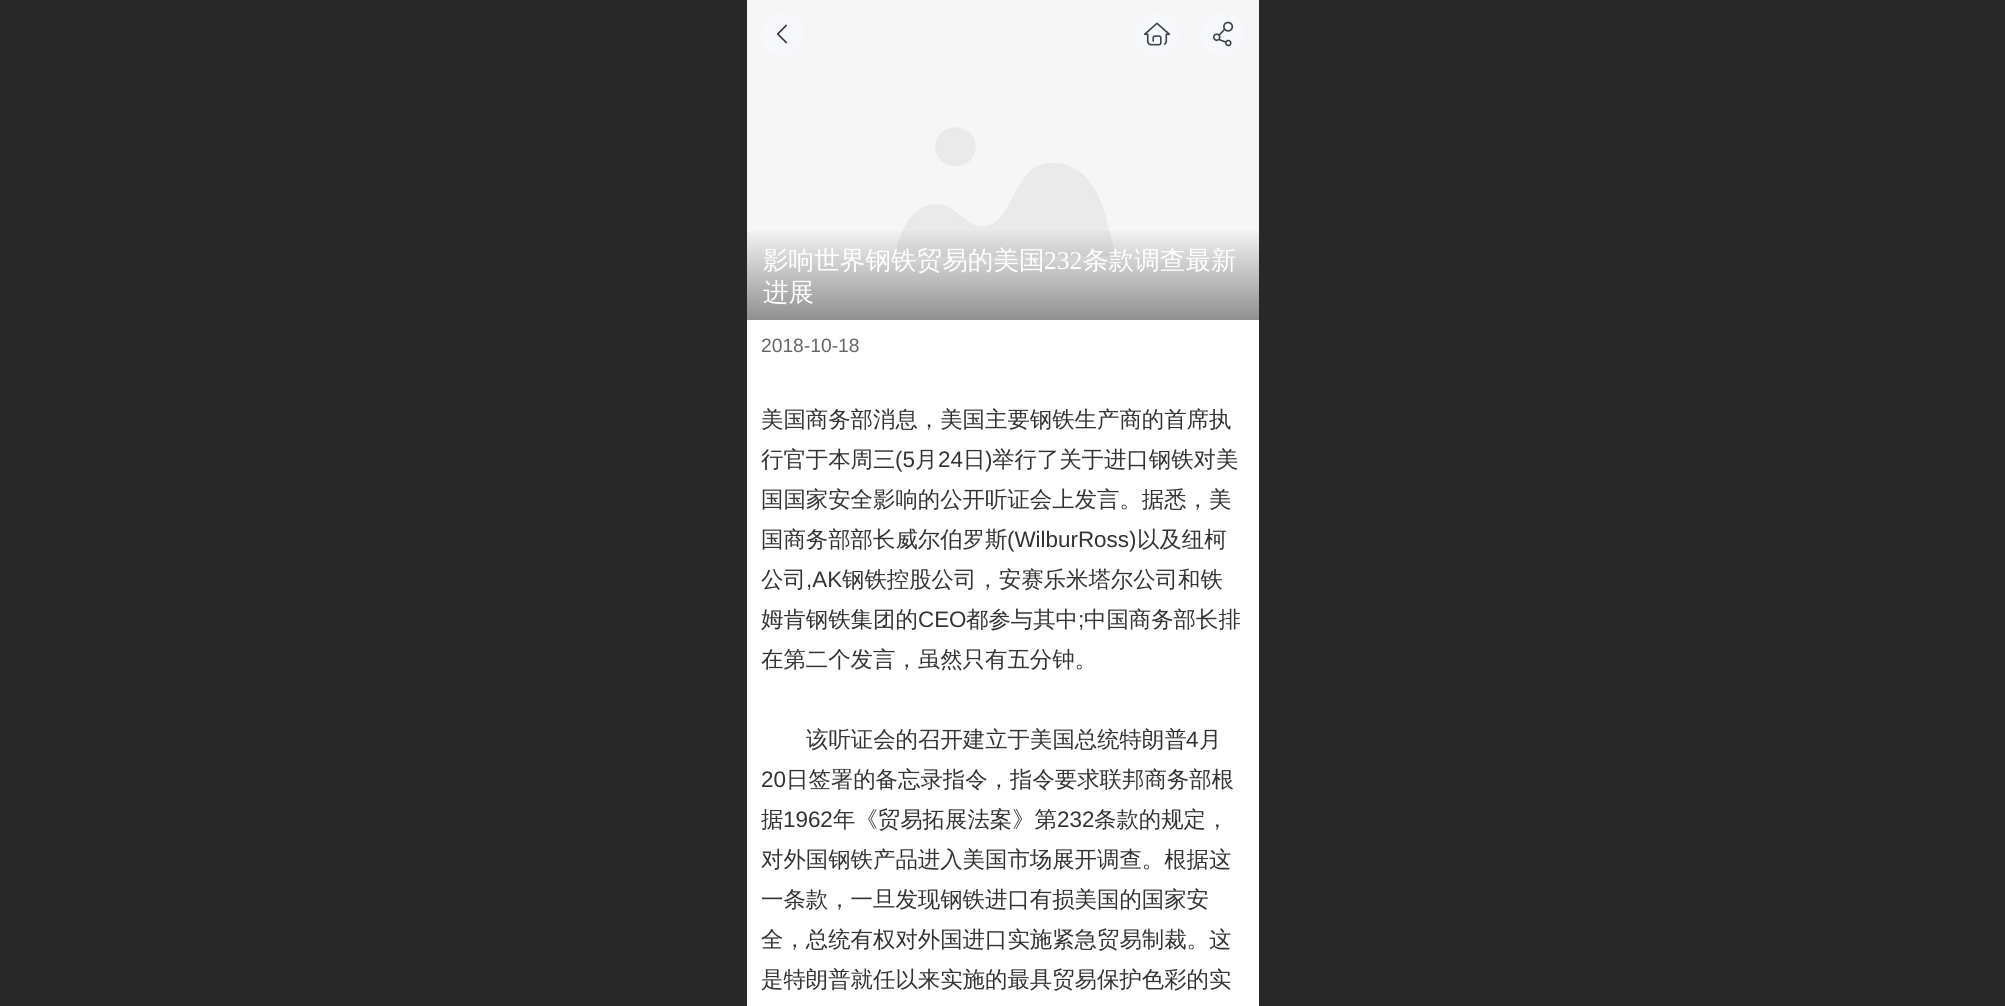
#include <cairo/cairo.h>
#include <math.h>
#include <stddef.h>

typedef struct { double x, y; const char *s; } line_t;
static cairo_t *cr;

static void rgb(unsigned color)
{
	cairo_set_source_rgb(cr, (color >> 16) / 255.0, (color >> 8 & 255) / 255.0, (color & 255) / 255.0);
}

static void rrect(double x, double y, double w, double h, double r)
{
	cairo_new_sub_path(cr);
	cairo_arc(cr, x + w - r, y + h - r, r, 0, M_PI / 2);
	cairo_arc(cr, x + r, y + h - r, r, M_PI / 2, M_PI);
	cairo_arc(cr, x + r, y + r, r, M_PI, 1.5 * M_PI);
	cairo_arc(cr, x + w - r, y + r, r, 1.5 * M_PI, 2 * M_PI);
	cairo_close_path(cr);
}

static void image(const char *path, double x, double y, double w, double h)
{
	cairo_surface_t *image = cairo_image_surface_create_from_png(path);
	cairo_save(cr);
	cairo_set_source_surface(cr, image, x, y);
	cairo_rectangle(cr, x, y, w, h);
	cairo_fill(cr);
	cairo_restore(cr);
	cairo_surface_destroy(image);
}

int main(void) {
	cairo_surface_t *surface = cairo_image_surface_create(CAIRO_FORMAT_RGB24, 2005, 1006);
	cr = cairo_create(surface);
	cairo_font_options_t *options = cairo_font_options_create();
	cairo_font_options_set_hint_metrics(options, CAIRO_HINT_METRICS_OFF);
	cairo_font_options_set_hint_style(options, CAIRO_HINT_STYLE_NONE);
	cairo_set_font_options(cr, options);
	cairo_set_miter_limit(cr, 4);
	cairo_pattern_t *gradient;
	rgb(0xffffff);
	cairo_paint(cr);
	rgb(0x282828);
	cairo_rectangle(cr, 0, 0, 747, 1006);
	cairo_fill(cr);
	image("img/4.png", 747, 0, 512, 320);
	rgb(0xf6f8fc);
	cairo_arc(cr, 782.5, 34.5, 21.5, 0, 2 * M_PI);
	cairo_fill(cr);
	image("img/1.png", 777, 24, 11, 20);
	rrect(1135, 13, 44, 43, 21.5);
	cairo_fill(cr);
	image("img/2.png", 1143, 22, 28, 24);
	cairo_arc(cr, 1222.5, 34.5, 21.5, 0, 2 * M_PI);
	cairo_fill(cr);
	image("img/3.png", 1212, 21, 22, 26);
	gradient = cairo_pattern_create_linear(1003, 227, 1003, 320);
	cairo_pattern_add_color_stop_rgba(gradient, 0, 0.165, 0.165, 0.165, 0);
	cairo_pattern_add_color_stop_rgba(gradient, 1, 0.165, 0.165, 0.165, 0.5);
	cairo_set_source(cr, gradient);
	cairo_pattern_destroy(gradient);
	cairo_rectangle(cr, 747, 231, 512, 89);
	cairo_fill(cr);
	rgb(0x282828);
	cairo_rectangle(cr, 1259, 0, 746, 1006);
	cairo_fill(cr);
	cairo_select_font_face(cr, "WenQuanYi Zen Hei Medium", CAIRO_FONT_SLANT_NORMAL, CAIRO_FONT_WEIGHT_NORMAL);
	cairo_set_font_size(cr, 25.6);
	rgb(0xffffff);
	cairo_move_to(cr, 763, 269);
	cairo_show_text(cr, "影响世界钢铁贸易的美国");
	cairo_select_font_face(cr, "Liberation Serif", CAIRO_FONT_SLANT_NORMAL, CAIRO_FONT_WEIGHT_NORMAL);
	cairo_move_to(cr, 1044, 269);
	cairo_show_text(cr, "232");
	cairo_select_font_face(cr, "WenQuanYi Zen Hei Medium", CAIRO_FONT_SLANT_NORMAL, CAIRO_FONT_WEIGHT_NORMAL);
	cairo_move_to(cr, 1083, 269);
	cairo_show_text(cr, "条款调查最新");
	cairo_move_to(cr, 763, 301);
	cairo_show_text(cr, "进展");
	cairo_select_font_face(cr, "Liberation Sans", CAIRO_FONT_SLANT_NORMAL, CAIRO_FONT_WEIGHT_NORMAL);
	cairo_set_font_size(cr, 19.25);
	rgb(0x666666);
	cairo_move_to(cr, 761, 352);
	cairo_show_text(cr, "2018-10-18");
	cairo_select_font_face(cr, "WenQuanYi Zen Hei Medium", CAIRO_FONT_SLANT_NORMAL, CAIRO_FONT_WEIGHT_NORMAL);
	cairo_set_font_size(cr, 22.4);
	rgb(0x333333);
	cairo_move_to(cr, 761, 427);
	cairo_show_text(cr, "美国商务部消息，美国主要钢铁生产商的首席执");
	cairo_move_to(cr, 761, 467);
	cairo_show_text(cr, "行官于本周三");
	cairo_select_font_face(cr, "Liberation Sans", CAIRO_FONT_SLANT_NORMAL, CAIRO_FONT_WEIGHT_NORMAL);
	cairo_move_to(cr, 895, 467);
	cairo_show_text(cr, "(5");
	cairo_select_font_face(cr, "WenQuanYi Zen Hei Medium", CAIRO_FONT_SLANT_NORMAL, CAIRO_FONT_WEIGHT_NORMAL);
	cairo_move_to(cr, 915, 467);
	cairo_show_text(cr, "月");
	cairo_select_font_face(cr, "Liberation Sans", CAIRO_FONT_SLANT_NORMAL, CAIRO_FONT_WEIGHT_NORMAL);
	cairo_move_to(cr, 938, 467);
	cairo_show_text(cr, "24");
	cairo_select_font_face(cr, "WenQuanYi Zen Hei Medium", CAIRO_FONT_SLANT_NORMAL, CAIRO_FONT_WEIGHT_NORMAL);
	cairo_move_to(cr, 963, 467);
	cairo_show_text(cr, "日");
	cairo_select_font_face(cr, "Liberation Sans", CAIRO_FONT_SLANT_NORMAL, CAIRO_FONT_WEIGHT_NORMAL);
	cairo_move_to(cr, 985, 467);
	cairo_show_text(cr, ")");
	cairo_select_font_face(cr, "WenQuanYi Zen Hei Medium", CAIRO_FONT_SLANT_NORMAL, CAIRO_FONT_WEIGHT_NORMAL);
	{
		static const line_t items[] = {
			{992, 467, "举行了关于进口钢铁对美"},
			{761, 507, "国国家安全影响的公开听证会上发言。据悉，美"},
			{761, 547, "国商务部部长威尔伯罗斯"},
		};
		for (size_t i = 0; i < sizeof items / sizeof *items; i++) {
			cairo_move_to(cr, items[i].x, items[i].y);
			cairo_show_text(cr, items[i].s);
		}
	}
	cairo_select_font_face(cr, "Liberation Sans", CAIRO_FONT_SLANT_NORMAL, CAIRO_FONT_WEIGHT_NORMAL);
	cairo_move_to(cr, 1007, 547);
	cairo_show_text(cr, "(WilburRoss)");
	cairo_select_font_face(cr, "WenQuanYi Zen Hei Medium", CAIRO_FONT_SLANT_NORMAL, CAIRO_FONT_WEIGHT_NORMAL);
	cairo_move_to(cr, 1137, 547);
	cairo_show_text(cr, "以及纽柯");
	cairo_move_to(cr, 761, 587);
	cairo_show_text(cr, "公司");
	cairo_select_font_face(cr, "Liberation Sans", CAIRO_FONT_SLANT_NORMAL, CAIRO_FONT_WEIGHT_NORMAL);
	cairo_move_to(cr, 806, 587);
	cairo_show_text(cr, ",AK");
	cairo_select_font_face(cr, "WenQuanYi Zen Hei Medium", CAIRO_FONT_SLANT_NORMAL, CAIRO_FONT_WEIGHT_NORMAL);
	cairo_move_to(cr, 842, 587);
	cairo_show_text(cr, "钢铁控股公司，安赛乐米塔尔公司和铁");
	cairo_move_to(cr, 761, 627);
	cairo_show_text(cr, "姆肯钢铁集团的");
	cairo_select_font_face(cr, "Liberation Sans", CAIRO_FONT_SLANT_NORMAL, CAIRO_FONT_WEIGHT_NORMAL);
	cairo_move_to(cr, 918, 627);
	cairo_show_text(cr, "CEO");
	cairo_select_font_face(cr, "WenQuanYi Zen Hei Medium", CAIRO_FONT_SLANT_NORMAL, CAIRO_FONT_WEIGHT_NORMAL);
	cairo_move_to(cr, 966, 627);
	cairo_show_text(cr, "都参与其中");
	cairo_select_font_face(cr, "Liberation Sans", CAIRO_FONT_SLANT_NORMAL, CAIRO_FONT_WEIGHT_NORMAL);
	cairo_move_to(cr, 1078, 627);
	cairo_show_text(cr, ";");
	cairo_select_font_face(cr, "WenQuanYi Zen Hei Medium", CAIRO_FONT_SLANT_NORMAL, CAIRO_FONT_WEIGHT_NORMAL);
	{
		static const line_t items[] = {
			{1084, 627, "中国商务部长排"},
			{761, 667, "在第二个发言，虽然只有五分钟。"},
			{806, 747, "该听证会的召开建立于美国总统特朗普"},
		};
		for (size_t i = 0; i < sizeof items / sizeof *items; i++) {
			cairo_move_to(cr, items[i].x, items[i].y);
			cairo_show_text(cr, items[i].s);
		}
	}
	cairo_select_font_face(cr, "Liberation Sans", CAIRO_FONT_SLANT_NORMAL, CAIRO_FONT_WEIGHT_NORMAL);
	cairo_move_to(cr, 1186, 747);
	cairo_show_text(cr, "4");
	cairo_select_font_face(cr, "WenQuanYi Zen Hei Medium", CAIRO_FONT_SLANT_NORMAL, CAIRO_FONT_WEIGHT_NORMAL);
	cairo_move_to(cr, 1199, 747);
	cairo_show_text(cr, "月");
	cairo_select_font_face(cr, "Liberation Sans", CAIRO_FONT_SLANT_NORMAL, CAIRO_FONT_WEIGHT_NORMAL);
	cairo_move_to(cr, 761, 787);
	cairo_show_text(cr, "20");
	cairo_select_font_face(cr, "WenQuanYi Zen Hei Medium", CAIRO_FONT_SLANT_NORMAL, CAIRO_FONT_WEIGHT_NORMAL);
	cairo_move_to(cr, 786, 787);
	cairo_show_text(cr, "日签署的备忘录指令，指令要求联邦商务部根");
	cairo_move_to(cr, 761, 827);
	cairo_show_text(cr, "据");
	cairo_select_font_face(cr, "Liberation Sans", CAIRO_FONT_SLANT_NORMAL, CAIRO_FONT_WEIGHT_NORMAL);
	cairo_move_to(cr, 783, 827);
	cairo_show_text(cr, "1962");
	cairo_select_font_face(cr, "WenQuanYi Zen Hei Medium", CAIRO_FONT_SLANT_NORMAL, CAIRO_FONT_WEIGHT_NORMAL);
	cairo_move_to(cr, 833, 827);
	cairo_show_text(cr, "年《贸易拓展法案》第");
	cairo_select_font_face(cr, "Liberation Sans", CAIRO_FONT_SLANT_NORMAL, CAIRO_FONT_WEIGHT_NORMAL);
	cairo_move_to(cr, 1057, 827);
	cairo_show_text(cr, "232");
	cairo_select_font_face(cr, "WenQuanYi Zen Hei Medium", CAIRO_FONT_SLANT_NORMAL, CAIRO_FONT_WEIGHT_NORMAL);
	{
		static const line_t items[] = {
			{1094, 827, "条款的规定，"},
			{761, 867, "对外国钢铁产品进入美国市场展开调查。根据这"},
			{761, 907, "一条款，一旦发现钢铁进口有损美国的国家安"},
			{761, 947, "全，总统有权对外国进口实施紧急贸易制裁。这"},
			{761, 987, "是特朗普就任以来实施的最具贸易保护色彩的实"},
		};
		for (size_t i = 0; i < sizeof items / sizeof *items; i++) {
			cairo_move_to(cr, items[i].x, items[i].y);
			cairo_show_text(cr, items[i].s);
		}
	}
	cairo_surface_write_to_png(surface, "page.png");
	cairo_font_options_destroy(options);
	cairo_destroy(cr);
	cairo_surface_destroy(surface);
	return 0;
}
